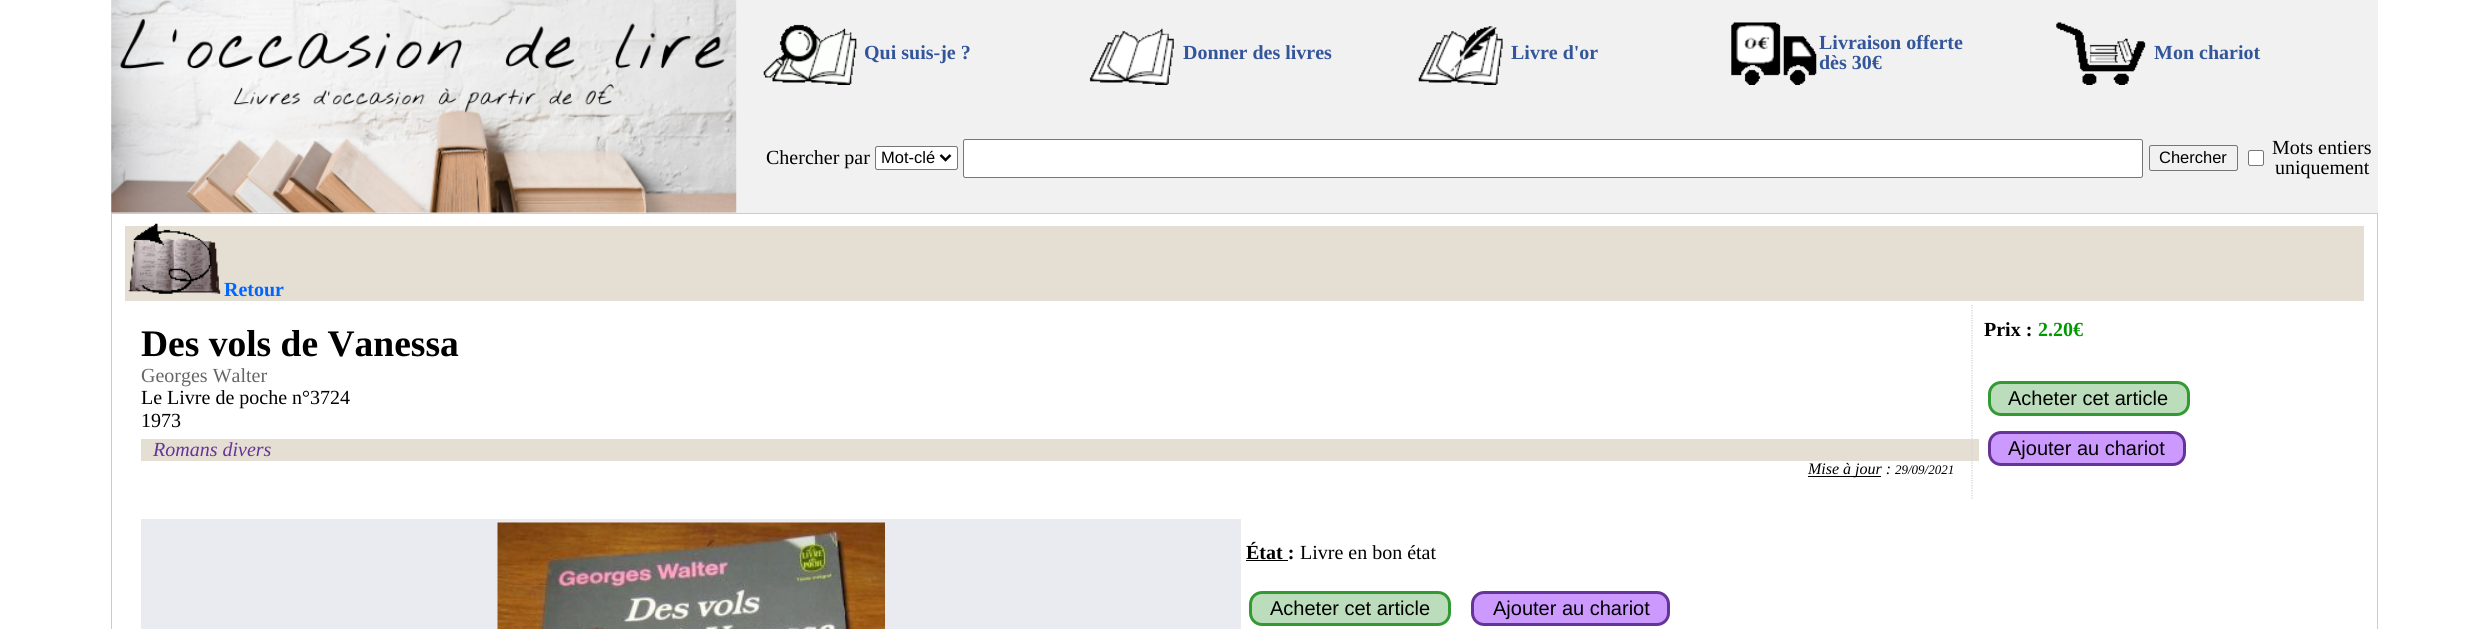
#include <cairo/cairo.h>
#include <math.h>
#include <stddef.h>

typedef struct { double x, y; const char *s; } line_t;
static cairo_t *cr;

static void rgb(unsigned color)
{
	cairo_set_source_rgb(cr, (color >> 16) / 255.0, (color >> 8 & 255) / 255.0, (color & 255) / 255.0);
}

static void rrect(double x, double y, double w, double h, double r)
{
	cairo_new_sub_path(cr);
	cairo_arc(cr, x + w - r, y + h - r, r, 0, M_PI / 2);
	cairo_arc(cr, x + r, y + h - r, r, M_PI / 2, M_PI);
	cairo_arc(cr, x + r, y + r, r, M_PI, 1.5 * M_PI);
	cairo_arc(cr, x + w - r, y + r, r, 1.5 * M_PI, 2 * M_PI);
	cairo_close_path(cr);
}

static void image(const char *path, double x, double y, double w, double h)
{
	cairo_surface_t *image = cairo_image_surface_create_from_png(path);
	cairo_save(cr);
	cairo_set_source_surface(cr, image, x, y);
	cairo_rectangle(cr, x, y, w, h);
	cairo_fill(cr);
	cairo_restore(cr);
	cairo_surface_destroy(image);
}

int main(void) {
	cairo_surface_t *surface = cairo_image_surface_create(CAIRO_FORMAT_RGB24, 2487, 629);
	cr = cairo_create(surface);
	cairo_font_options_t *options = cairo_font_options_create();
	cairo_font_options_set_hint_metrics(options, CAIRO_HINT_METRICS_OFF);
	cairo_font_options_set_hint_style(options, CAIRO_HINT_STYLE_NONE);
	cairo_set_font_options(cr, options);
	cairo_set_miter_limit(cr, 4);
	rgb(0xffffff);
	cairo_paint(cr);
	rgb(0xf1f1f1);
	cairo_rectangle(cr, 111, 0, 2267, 213);
	cairo_fill(cr);
	image("img/1.png", 111, 0, 626, 213);
	image("img/2.png", 763, 24, 94, 61);
	image("img/3.png", 1089, 28, 85, 57);
	image("img/4.png", 1418, 26, 85, 59);
	image("img/5.png", 1731, 22, 86, 63);
	image("img/6.png", 2056, 22, 90, 63);
	rgb(0xffffff);
	rrect(875.5, 146.5, 82, 23, 2);
	cairo_fill_preserve(cr);
	rgb(0x767676);
	cairo_set_line_width(cr, 1);
	cairo_stroke(cr);
	cairo_new_path(cr);
	cairo_move_to(cr, 940.5, 155);
	cairo_line_to(cr, 945.5, 160);
	cairo_line_to(cr, 950.5, 155);
	rgb(0x000000);
	cairo_set_line_width(cr, 2.5);
	cairo_stroke(cr);
	rgb(0xffffff);
	rrect(963.5, 139.5, 1179, 38, 2);
	cairo_fill_preserve(cr);
	rgb(0x767676);
	cairo_set_line_width(cr, 1);
	cairo_stroke(cr);
	rrect(2149.5, 145.5, 88, 25, 2);
	cairo_stroke(cr);
	rgb(0xffffff);
	rrect(2248.5, 150.5, 15, 15, 2);
	cairo_fill_preserve(cr);
	rgb(0x767676);
	cairo_stroke(cr);
	cairo_rectangle(cr, 111.5, 213.5, 2266, 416);
	rgb(0xcccccc);
	cairo_stroke(cr);
	rgb(0xe5ded2);
	cairo_rectangle(cr, 125, 226, 2239, 75);
	cairo_fill(cr);
	image("img/7.png", 128, 223, 93, 71);
	cairo_rectangle(cr, 141, 439, 1838, 22);
	cairo_fill(cr);
	rgb(0x000000);
	cairo_rectangle(cr, 1808, 476, 73, 1);
	cairo_fill(cr);
	cairo_new_path(cr);
	cairo_move_to(cr, 1972, 305);
	cairo_line_to(cr, 1972, 499);
	rgb(0xc9d4d7);
	cairo_set_line_width(cr, 1.2);
	cairo_set_dash(cr, (double[]){1.25, 1.25}, 2, 0);
	cairo_stroke(cr);
	rgb(0xbbddbb);
	rrect(1989.5, 382.5, 199, 32, 11.5);
	cairo_fill_preserve(cr);
	rgb(0x339933);
	cairo_set_line_width(cr, 3);
	cairo_set_dash(cr, NULL, 0, 0);
	cairo_stroke(cr);
	rgb(0xcc99ff);
	rrect(1989.5, 432.5, 195, 32, 11.5);
	cairo_fill_preserve(cr);
	rgb(0x663399);
	cairo_stroke(cr);
	rgb(0xeaebf0);
	cairo_rectangle(cr, 141, 519, 1100, 110);
	cairo_fill(cr);
	image("img/8.png", 497, 522, 388, 107);
	rgb(0x000000);
	cairo_rectangle(cr, 1246, 560, 42, 1);
	cairo_fill(cr);
	rgb(0xbbddbb);
	rrect(1250.5, 592.5, 199, 32, 11.5);
	cairo_fill_preserve(cr);
	rgb(0x339933);
	cairo_stroke(cr);
	rgb(0xcc99ff);
	rrect(1472.5, 592.5, 196, 32, 11.5);
	cairo_fill_preserve(cr);
	rgb(0x663399);
	cairo_stroke(cr);
	cairo_select_font_face(cr, "Liberation Serif", CAIRO_FONT_SLANT_NORMAL, CAIRO_FONT_WEIGHT_BOLD);
	cairo_set_font_size(cr, 20);
	rgb(0x335599);
	{
		static const line_t items[] = {
			{864, 59, "Qui suis-je ?"},
			{1183, 59, "Donner des livres"},
			{1511, 59, "Livre d'or"},
			{1819, 49, "Livraison offerte"},
			{1819, 69, "dès 30€"},
			{2154, 59, "Mon chariot"},
		};
		for (size_t i = 0; i < sizeof items / sizeof *items; i++) {
			cairo_move_to(cr, items[i].x, items[i].y);
			cairo_show_text(cr, items[i].s);
		}
	}
	cairo_select_font_face(cr, "Liberation Serif", CAIRO_FONT_SLANT_NORMAL, CAIRO_FONT_WEIGHT_NORMAL);
	rgb(0x000000);
	cairo_move_to(cr, 766, 164);
	cairo_show_text(cr, "Chercher par");
	cairo_select_font_face(cr, "Liberation Sans", CAIRO_FONT_SLANT_NORMAL, CAIRO_FONT_WEIGHT_NORMAL);
	cairo_set_font_size(cr, 16.5);
	cairo_move_to(cr, 881, 163);
	cairo_show_text(cr, "Mot-clé");
	cairo_move_to(cr, 2159, 163);
	cairo_show_text(cr, "Chercher");
	cairo_select_font_face(cr, "Liberation Serif", CAIRO_FONT_SLANT_NORMAL, CAIRO_FONT_WEIGHT_NORMAL);
	cairo_set_font_size(cr, 20);
	cairo_move_to(cr, 2272, 154);
	cairo_show_text(cr, "Mots entiers");
	cairo_move_to(cr, 2275, 174);
	cairo_show_text(cr, "uniquement");
	cairo_select_font_face(cr, "Liberation Serif", CAIRO_FONT_SLANT_NORMAL, CAIRO_FONT_WEIGHT_BOLD);
	rgb(0x0066ff);
	cairo_move_to(cr, 224, 296);
	cairo_show_text(cr, "Retour");
	cairo_set_font_size(cr, 37.5);
	rgb(0x000000);
	cairo_move_to(cr, 141, 356);
	cairo_show_text(cr, "Des vols de Vanessa");
	cairo_select_font_face(cr, "Liberation Serif", CAIRO_FONT_SLANT_NORMAL, CAIRO_FONT_WEIGHT_NORMAL);
	cairo_set_font_size(cr, 20);
	rgb(0x666666);
	cairo_move_to(cr, 141, 382);
	cairo_show_text(cr, "Georges Walter");
	rgb(0x000000);
	cairo_move_to(cr, 141, 404);
	cairo_show_text(cr, "Le Livre de poche n°3724");
	cairo_move_to(cr, 141, 427);
	cairo_show_text(cr, "1973");
	cairo_select_font_face(cr, "Liberation Serif", CAIRO_FONT_SLANT_ITALIC, CAIRO_FONT_WEIGHT_NORMAL);
	rgb(0x663399);
	cairo_move_to(cr, 153, 456);
	cairo_show_text(cr, "Romans divers");
	cairo_set_font_size(cr, 16);
	rgb(0x000000);
	cairo_move_to(cr, 1808, 474);
	cairo_show_text(cr, "Mise à jour :");
	cairo_set_font_size(cr, 13);
	cairo_move_to(cr, 1895, 474);
	cairo_show_text(cr, "29/09/2021");
	cairo_select_font_face(cr, "Liberation Serif", CAIRO_FONT_SLANT_NORMAL, CAIRO_FONT_WEIGHT_BOLD);
	cairo_set_font_size(cr, 20);
	cairo_move_to(cr, 1984, 336);
	cairo_show_text(cr, "Prix :");
	rgb(0x009900);
	cairo_move_to(cr, 2038, 336);
	cairo_show_text(cr, "2.20€");
	cairo_select_font_face(cr, "Liberation Sans", CAIRO_FONT_SLANT_NORMAL, CAIRO_FONT_WEIGHT_NORMAL);
	rgb(0x000000);
	cairo_move_to(cr, 2008, 405);
	cairo_show_text(cr, "Acheter cet article");
	cairo_move_to(cr, 2008, 455);
	cairo_show_text(cr, "Ajouter au chariot");
	cairo_select_font_face(cr, "Liberation Serif", CAIRO_FONT_SLANT_NORMAL, CAIRO_FONT_WEIGHT_BOLD);
	cairo_move_to(cr, 1246, 559);
	cairo_show_text(cr, "État :");
	cairo_select_font_face(cr, "Liberation Serif", CAIRO_FONT_SLANT_NORMAL, CAIRO_FONT_WEIGHT_NORMAL);
	cairo_move_to(cr, 1300, 559);
	cairo_show_text(cr, "Livre en bon état");
	cairo_select_font_face(cr, "Liberation Sans", CAIRO_FONT_SLANT_NORMAL, CAIRO_FONT_WEIGHT_NORMAL);
	cairo_move_to(cr, 1270, 615);
	cairo_show_text(cr, "Acheter cet article");
	cairo_move_to(cr, 1493, 615);
	cairo_show_text(cr, "Ajouter au chariot");
	cairo_surface_write_to_png(surface, "page.png");
	cairo_font_options_destroy(options);
	cairo_destroy(cr);
	cairo_surface_destroy(surface);
	return 0;
}
